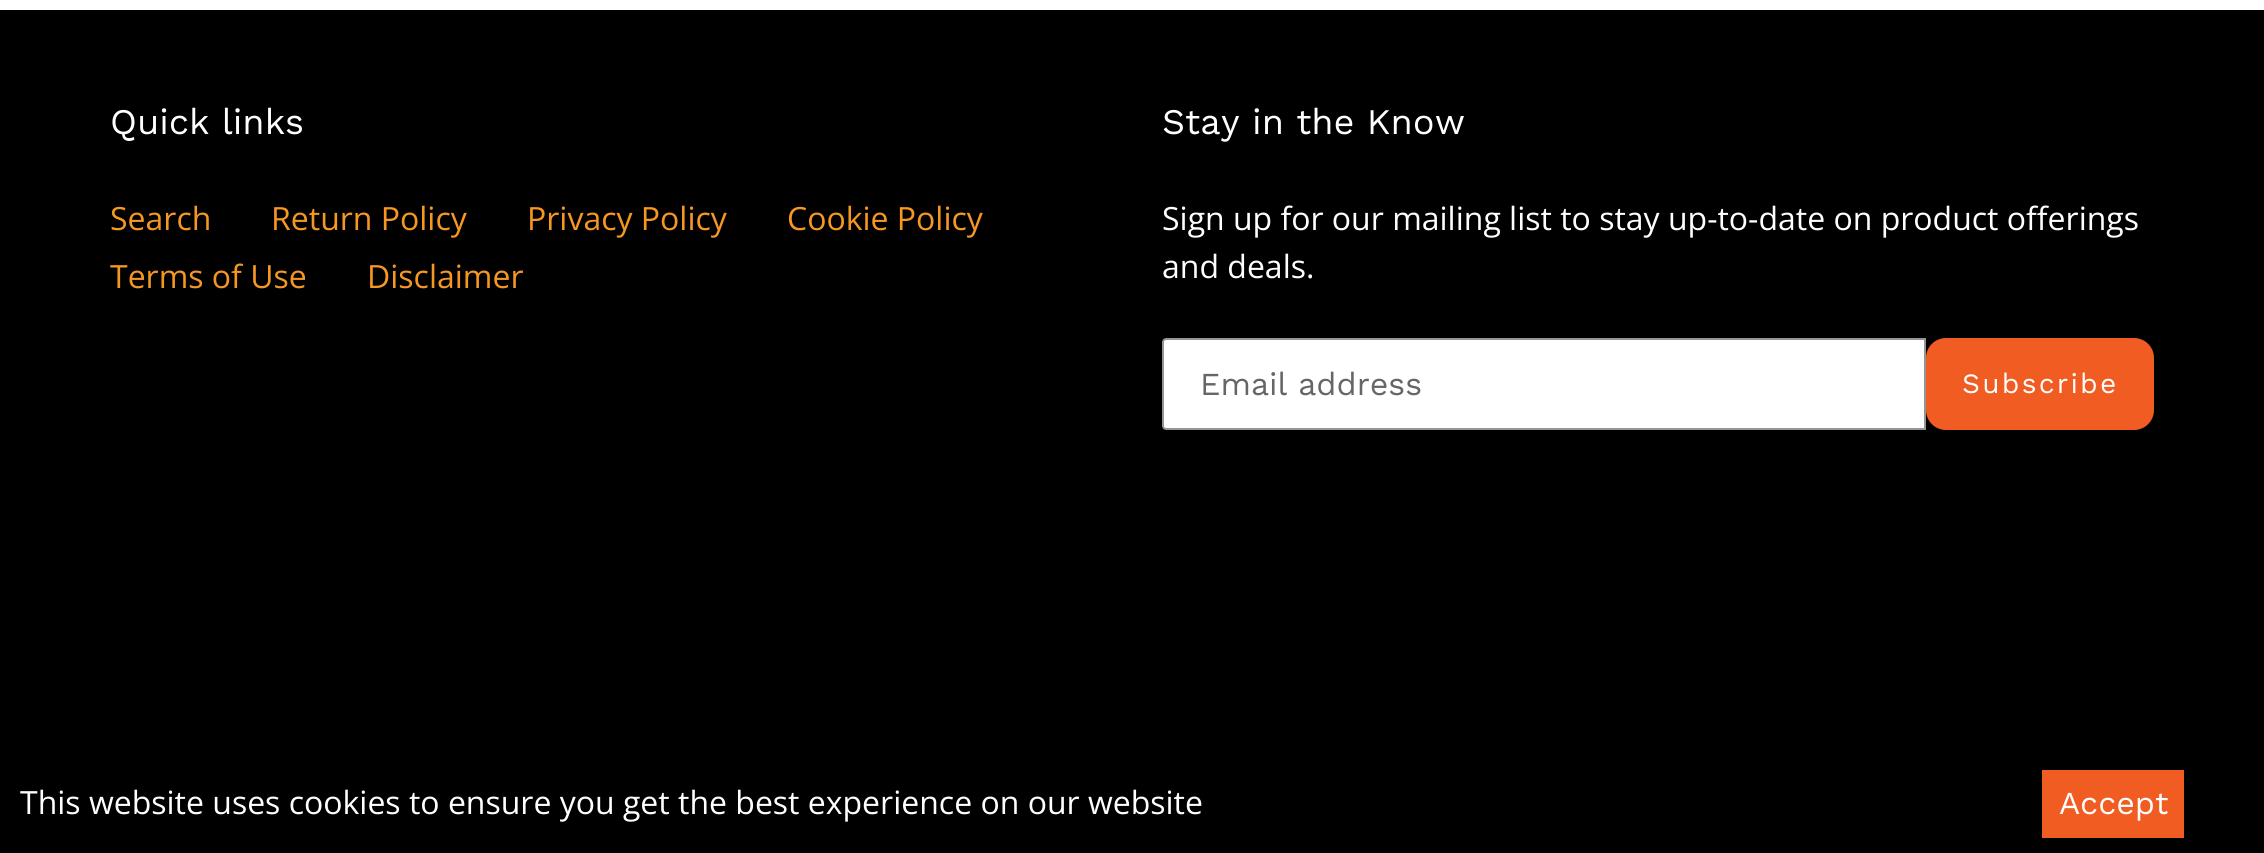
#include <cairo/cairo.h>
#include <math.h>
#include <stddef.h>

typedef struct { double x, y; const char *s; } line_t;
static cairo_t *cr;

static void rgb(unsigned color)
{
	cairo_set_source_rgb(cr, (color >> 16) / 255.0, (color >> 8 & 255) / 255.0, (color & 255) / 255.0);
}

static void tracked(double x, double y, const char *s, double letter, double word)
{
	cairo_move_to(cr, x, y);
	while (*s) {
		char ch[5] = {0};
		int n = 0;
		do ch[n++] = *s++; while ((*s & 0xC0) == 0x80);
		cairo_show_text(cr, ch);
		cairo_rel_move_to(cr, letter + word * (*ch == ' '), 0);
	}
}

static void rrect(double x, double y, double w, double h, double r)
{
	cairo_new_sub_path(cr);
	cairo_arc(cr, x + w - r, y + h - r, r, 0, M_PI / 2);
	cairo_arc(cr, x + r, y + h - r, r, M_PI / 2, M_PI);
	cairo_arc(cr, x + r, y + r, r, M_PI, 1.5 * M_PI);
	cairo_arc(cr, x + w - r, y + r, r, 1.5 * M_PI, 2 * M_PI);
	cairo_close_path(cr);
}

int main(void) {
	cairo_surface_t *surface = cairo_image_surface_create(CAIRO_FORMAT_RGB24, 2264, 853);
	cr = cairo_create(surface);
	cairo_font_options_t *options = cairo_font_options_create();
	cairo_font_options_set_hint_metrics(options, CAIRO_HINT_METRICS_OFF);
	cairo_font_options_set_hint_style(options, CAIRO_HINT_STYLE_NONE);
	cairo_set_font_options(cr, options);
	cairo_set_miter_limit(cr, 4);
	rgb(0xffffff);
	cairo_paint(cr);
	rgb(0x000000);
	cairo_rectangle(cr, 0, 10, 2264, 843);
	cairo_fill(cr);
	rgb(0xffffff);
	cairo_new_path(cr);
	cairo_move_to(cr, 1166, 339);
	cairo_line_to(cr, 1925, 339);
	cairo_line_to(cr, 1925, 429);
	cairo_line_to(cr, 1166, 429);
	cairo_curve_to(cr, 1164.5, 429, 1163, 427.5, 1163, 426);
	cairo_line_to(cr, 1163, 342);
	cairo_curve_to(cr, 1163, 340.5, 1164.5, 339, 1166, 339);
	cairo_close_path(cr);
	cairo_fill_preserve(cr);
	rgb(0x949494);
	cairo_stroke(cr);
	rgb(0xf15c22);
	rrect(1926, 338, 228, 92, 20);
	cairo_fill(cr);
	cairo_rectangle(cr, 2044, 772, 138, 64);
	cairo_fill_preserve(cr);
	cairo_set_line_width(cr, 4);
	cairo_stroke(cr);
	cairo_select_font_face(cr, "Work Sans", CAIRO_FONT_SLANT_NORMAL, CAIRO_FONT_WEIGHT_NORMAL);
	cairo_set_font_size(cr, 36);
	rgb(0xffffff);
	cairo_move_to(cr, 110, 134);
	cairo_show_text(cr, "Quick links");
	cairo_select_font_face(cr, "Open Sans", CAIRO_FONT_SLANT_NORMAL, CAIRO_FONT_WEIGHT_NORMAL);
	cairo_set_font_size(cr, 32);
	rgb(0xf69723);
	{
		static const line_t items[] = {
			{110, 230, "Search"},
			{271, 230, "Return Policy"},
			{527, 230, "Privacy Policy"},
			{787, 230, "Cookie Policy"},
			{110, 288, "Terms of Use"},
			{367, 288, "Disclaimer"},
		};
		for (size_t i = 0; i < sizeof items / sizeof *items; i++) {
			cairo_move_to(cr, items[i].x, items[i].y);
			cairo_show_text(cr, items[i].s);
		}
	}
	cairo_select_font_face(cr, "Work Sans", CAIRO_FONT_SLANT_NORMAL, CAIRO_FONT_WEIGHT_NORMAL);
	cairo_set_font_size(cr, 36);
	rgb(0xffffff);
	cairo_move_to(cr, 1162, 134);
	cairo_show_text(cr, "Stay in the Know");
	cairo_select_font_face(cr, "Open Sans", CAIRO_FONT_SLANT_NORMAL, CAIRO_FONT_WEIGHT_NORMAL);
	cairo_set_font_size(cr, 32);
	cairo_move_to(cr, 1162, 230);
	cairo_show_text(cr, "Sign up for our mailing list to stay up-to-date on product offerings");
	cairo_move_to(cr, 1162, 278);
	cairo_show_text(cr, "and deals.");
	cairo_select_font_face(cr, "Work Sans", CAIRO_FONT_SLANT_NORMAL, CAIRO_FONT_WEIGHT_NORMAL);
	rgb(0x666666);
	cairo_move_to(cr, 1200, 395);
	cairo_show_text(cr, "Email address");
	cairo_set_font_size(cr, 28);
	rgb(0xffffff);
	tracked(1962, 393, "Subscribe", 2.25, 0);
	cairo_select_font_face(cr, "Open Sans", CAIRO_FONT_SLANT_NORMAL, CAIRO_FONT_WEIGHT_NORMAL);
	cairo_set_font_size(cr, 32);
	cairo_move_to(cr, 20, 814);
	cairo_show_text(cr, "This website uses cookies to ensure you get the best experience on our website");
	cairo_select_font_face(cr, "Work Sans", CAIRO_FONT_SLANT_NORMAL, CAIRO_FONT_WEIGHT_NORMAL);
	cairo_move_to(cr, 2059, 814);
	cairo_show_text(cr, "Accept");
	cairo_surface_write_to_png(surface, "page.png");
	cairo_font_options_destroy(options);
	cairo_destroy(cr);
	cairo_surface_destroy(surface);
	return 0;
}
